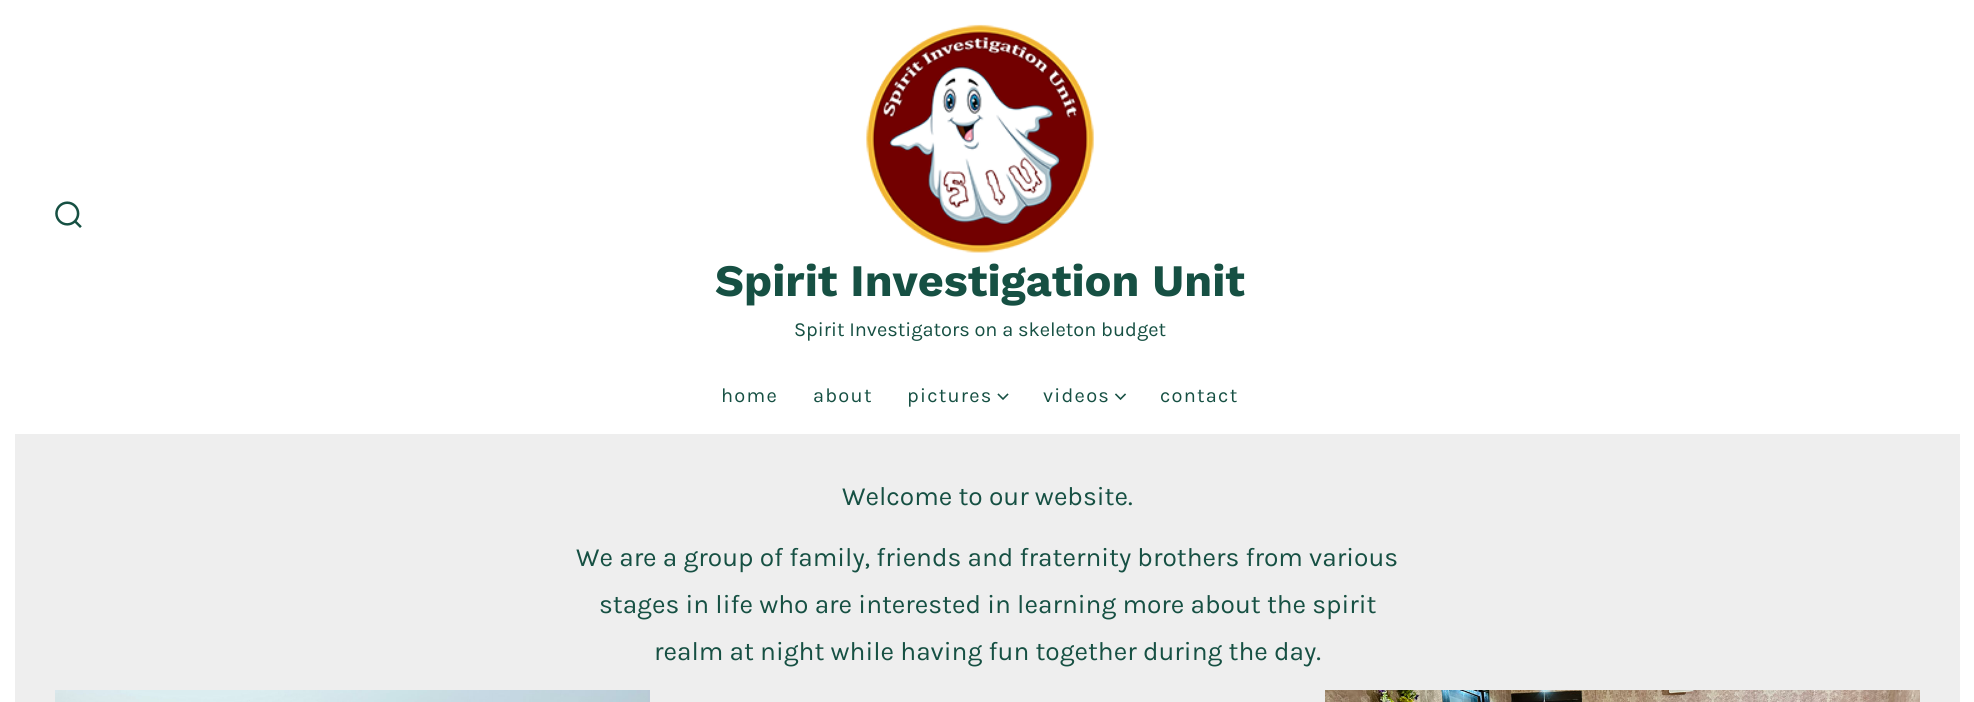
#include <cairo/cairo.h>
#include <math.h>
#include <stddef.h>

typedef struct { double x, y; const char *s; } line_t;
typedef struct { double x, y, w, h; unsigned color; } box_t;
static cairo_t *cr;

static void rgb(unsigned color)
{
	cairo_set_source_rgb(cr, (color >> 16) / 255.0, (color >> 8 & 255) / 255.0, (color & 255) / 255.0);
}

static void tracked(double x, double y, const char *s, double letter, double word)
{
	cairo_move_to(cr, x, y);
	while (*s) {
		char ch[5] = {0};
		int n = 0;
		do ch[n++] = *s++; while ((*s & 0xC0) == 0x80);
		cairo_show_text(cr, ch);
		cairo_rel_move_to(cr, letter + word * (*ch == ' '), 0);
	}
}

static void image(const char *path, double x, double y, double w, double h)
{
	cairo_surface_t *image = cairo_image_surface_create_from_png(path);
	cairo_save(cr);
	cairo_set_source_surface(cr, image, x, y);
	cairo_rectangle(cr, x, y, w, h);
	cairo_fill(cr);
	cairo_restore(cr);
	cairo_surface_destroy(image);
}

int main(void) {
	cairo_surface_t *surface = cairo_image_surface_create(CAIRO_FORMAT_RGB24, 1974, 702);
	cr = cairo_create(surface);
	cairo_font_options_t *options = cairo_font_options_create();
	cairo_font_options_set_hint_metrics(options, CAIRO_HINT_METRICS_OFF);
	cairo_font_options_set_hint_style(options, CAIRO_HINT_STYLE_NONE);
	cairo_set_font_options(cr, options);
	cairo_set_miter_limit(cr, 4);
	rgb(0xeeeeee);
	cairo_paint(cr);
	{
		static const box_t items[] = {
			{1960, 0, 14, 702, 0xffffff},
			{0, 0, 15, 702, 0xffffff},
			{15, 0, 1945, 434, 0xffffff},
		};
		for (size_t i = 0; i < sizeof items / sizeof *items; i++) {
			rgb(items[i].color);
			cairo_rectangle(cr, items[i].x, items[i].y, items[i].w, items[i].h);
			cairo_fill(cr);
		}
	}
	image("img/1.png", 55, 201, 27, 27);
	image("img/2.png", 866, 24, 228, 229);
	cairo_new_path(cr);
	cairo_move_to(cr, 998.5, 394.5);
	cairo_line_to(cr, 1003, 399);
	cairo_line_to(cr, 1007.5, 394.5);
	rgb(0x165043);
	cairo_set_line_width(cr, 1.6);
	cairo_set_line_cap(cr, CAIRO_LINE_CAP_SQUARE);
	cairo_stroke(cr);
	cairo_new_path(cr);
	cairo_move_to(cr, 1116, 394.5);
	cairo_line_to(cr, 1120.5, 399);
	cairo_line_to(cr, 1125, 394.5);
	cairo_stroke(cr);
	image("img/3.png", 55, 690, 595, 12);
	image("img/4.png", 1325, 690, 595, 12);
	cairo_select_font_face(cr, "Work Sans", CAIRO_FONT_SLANT_NORMAL, CAIRO_FONT_WEIGHT_BOLD);
	cairo_set_font_size(cr, 45);
	cairo_move_to(cr, 715, 296);
	cairo_show_text(cr, "Spirit Investigation Unit");
	cairo_select_font_face(cr, "Karla", CAIRO_FONT_SLANT_NORMAL, CAIRO_FONT_WEIGHT_NORMAL);
	cairo_set_font_size(cr, 20);
	cairo_move_to(cr, 794, 336);
	cairo_show_text(cr, "Spirit Investigators on a skeleton budget");
	{
		static const line_t items[] = {
			{721, 402, "home"},
			{813, 402, "about"},
			{907, 402, "pictures"},
			{1043, 402, "videos"},
			{1160, 402, "contact"},
		};
		for (size_t i = 0; i < sizeof items / sizeof *items; i++) {
			tracked(items[i].x, items[i].y, items[i].s, 1.25, 0);
		}
	}
	cairo_set_font_size(cr, 26.25);
	{
		static const line_t items[] = {
			{842, 505, "Welcome to our website."},
			{576, 566, "We are a group of family, friends and fraternity brothers from various"},
			{599, 613, "stages in life who are interested in learning more about the spirit"},
			{654, 660, "realm at night while having fun together during the day."},
		};
		for (size_t i = 0; i < sizeof items / sizeof *items; i++) {
			cairo_move_to(cr, items[i].x, items[i].y);
			cairo_show_text(cr, items[i].s);
		}
	}
	cairo_surface_write_to_png(surface, "page.png");
	cairo_font_options_destroy(options);
	cairo_destroy(cr);
	cairo_surface_destroy(surface);
	return 0;
}
